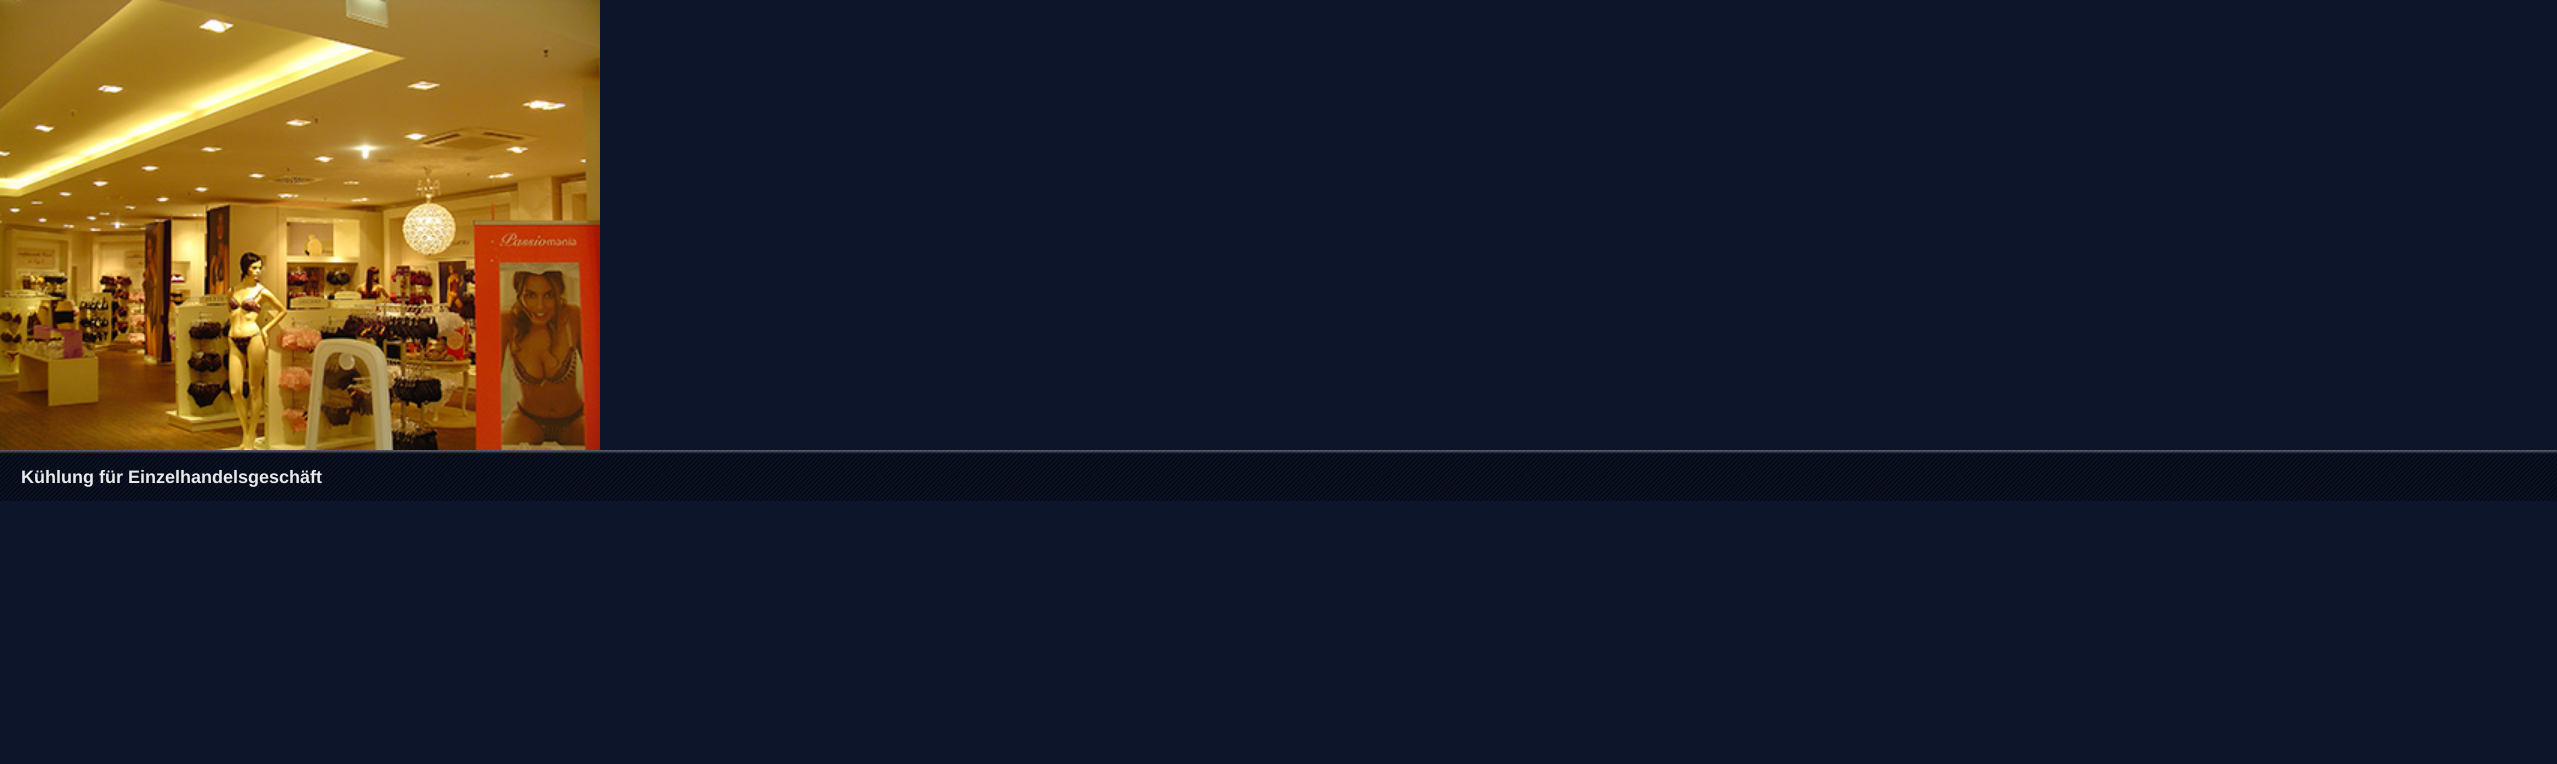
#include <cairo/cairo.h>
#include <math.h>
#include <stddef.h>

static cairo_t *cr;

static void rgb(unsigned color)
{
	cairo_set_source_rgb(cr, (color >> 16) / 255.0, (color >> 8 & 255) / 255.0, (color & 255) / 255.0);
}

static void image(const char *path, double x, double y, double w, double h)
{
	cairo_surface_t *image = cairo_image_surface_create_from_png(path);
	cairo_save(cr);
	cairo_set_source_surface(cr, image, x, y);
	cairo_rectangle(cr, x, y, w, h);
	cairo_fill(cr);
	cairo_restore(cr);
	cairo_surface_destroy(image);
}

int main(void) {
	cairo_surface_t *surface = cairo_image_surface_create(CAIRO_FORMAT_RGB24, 2557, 764);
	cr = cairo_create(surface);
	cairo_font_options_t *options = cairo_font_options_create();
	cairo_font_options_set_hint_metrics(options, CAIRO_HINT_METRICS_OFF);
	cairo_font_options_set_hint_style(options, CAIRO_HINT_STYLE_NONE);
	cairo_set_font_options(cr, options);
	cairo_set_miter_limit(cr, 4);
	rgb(0x0c1529);
	cairo_paint(cr);
	image("img/1.png", 0, 0, 600, 450);
	image("img/2.png", 0, 450, 2557, 51);
	cairo_select_font_face(cr, "Liberation Sans", CAIRO_FONT_SLANT_NORMAL, CAIRO_FONT_WEIGHT_BOLD);
	cairo_set_font_size(cr, 18);
	rgb(0xe9e9e9);
	cairo_move_to(cr, 21, 483);
	cairo_show_text(cr, "Kühlung für Einzelhandelsgeschäft");
	cairo_surface_write_to_png(surface, "page.png");
	cairo_font_options_destroy(options);
	cairo_destroy(cr);
	cairo_surface_destroy(surface);
	return 0;
}
